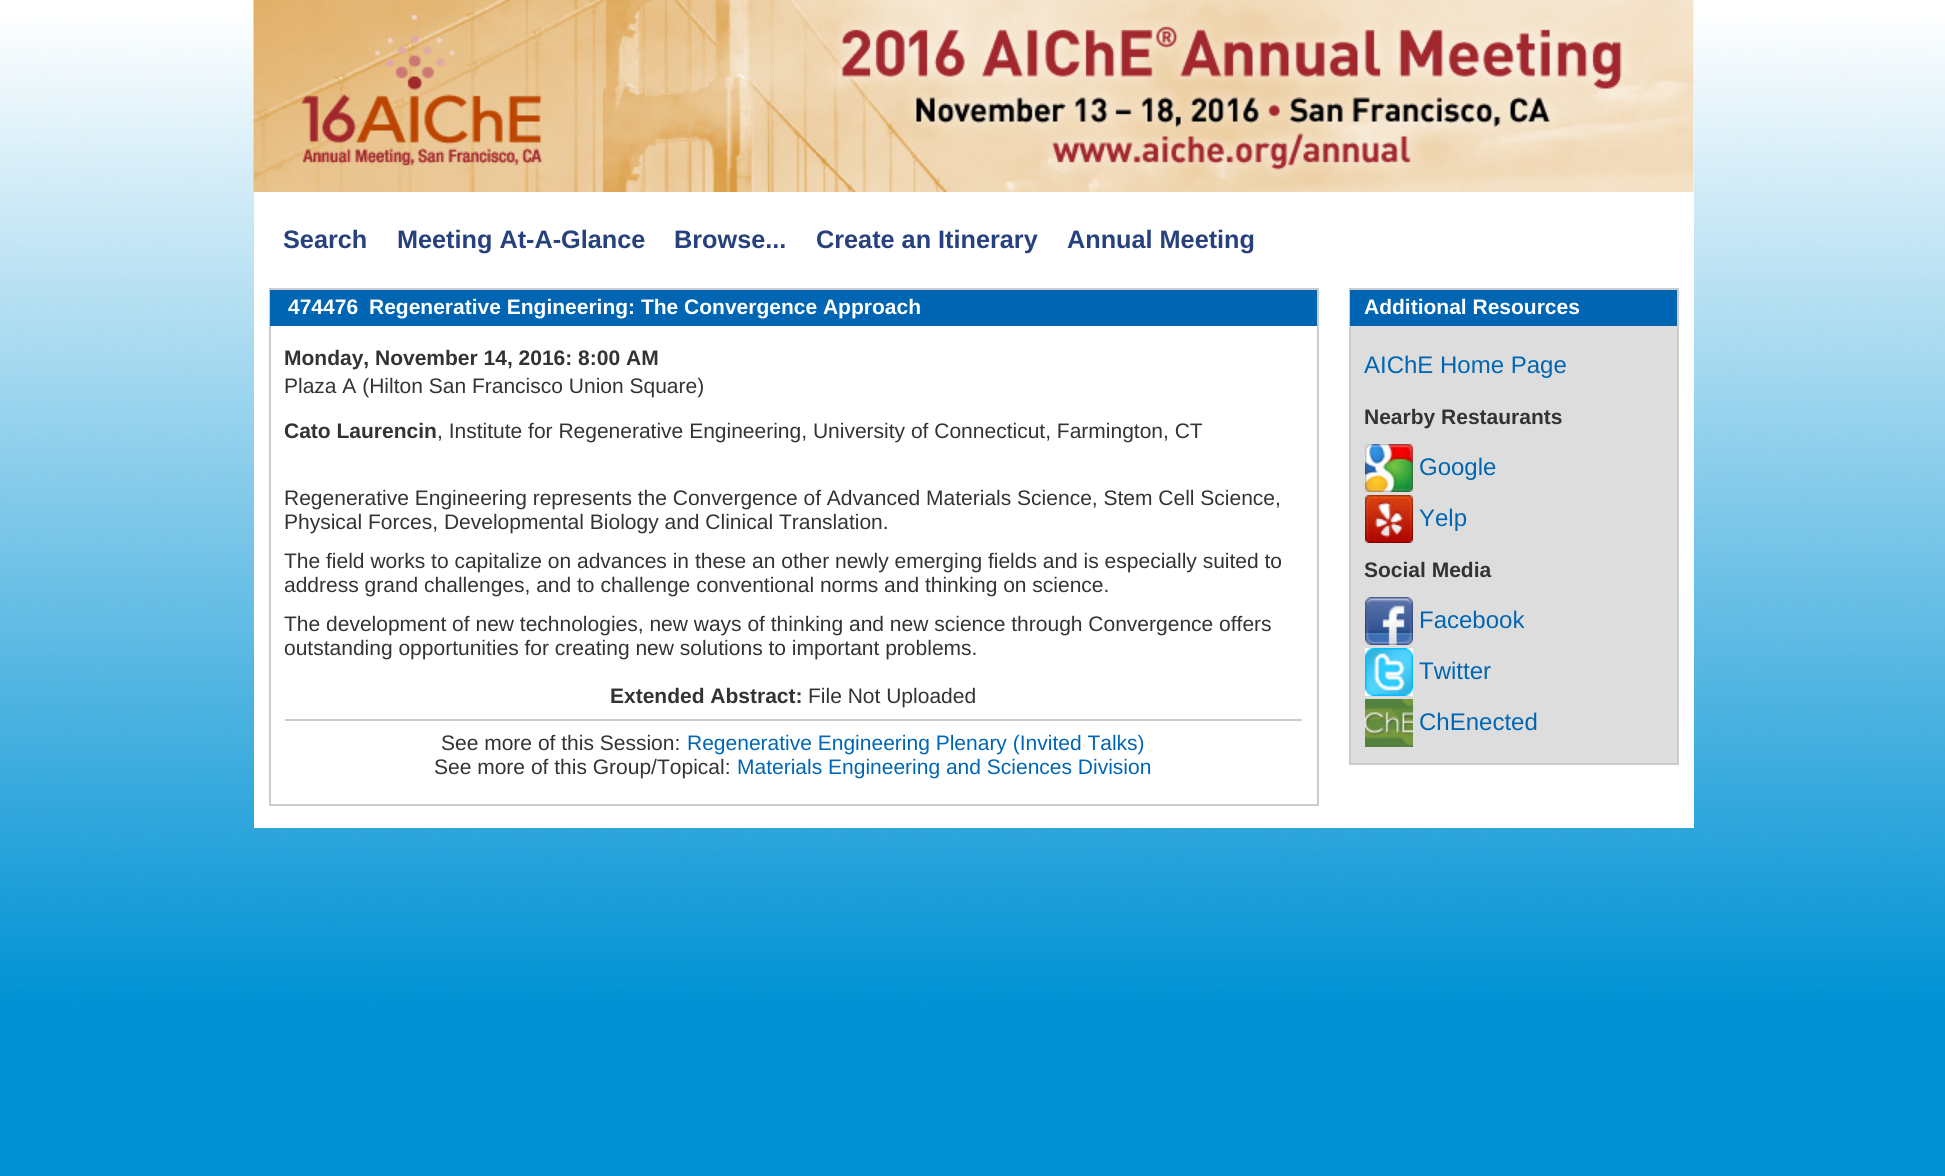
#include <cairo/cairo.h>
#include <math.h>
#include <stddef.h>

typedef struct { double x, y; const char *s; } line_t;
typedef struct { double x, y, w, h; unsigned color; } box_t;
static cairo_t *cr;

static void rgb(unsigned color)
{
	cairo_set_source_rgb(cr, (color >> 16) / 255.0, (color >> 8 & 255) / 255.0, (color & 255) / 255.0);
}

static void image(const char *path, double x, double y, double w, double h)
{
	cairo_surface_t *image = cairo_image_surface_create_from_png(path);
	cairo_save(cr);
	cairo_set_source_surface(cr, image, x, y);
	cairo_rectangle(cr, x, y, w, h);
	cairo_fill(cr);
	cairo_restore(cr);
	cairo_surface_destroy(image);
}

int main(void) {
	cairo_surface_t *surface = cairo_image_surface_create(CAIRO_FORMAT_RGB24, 1945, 1176);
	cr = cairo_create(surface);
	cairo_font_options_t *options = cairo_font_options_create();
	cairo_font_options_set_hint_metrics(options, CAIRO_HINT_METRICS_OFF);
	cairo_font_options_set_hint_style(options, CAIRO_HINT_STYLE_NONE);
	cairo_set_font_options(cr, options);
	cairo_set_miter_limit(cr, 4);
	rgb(0xffffff);
	cairo_paint(cr);
	image("img/1.png", 0, 0, 1945, 1176);
	rgb(0xffffff);
	cairo_rectangle(cr, 254, 13, 1440, 815);
	cairo_fill(cr);
	image("img/2.png", 253, 0, 1441, 192);
	cairo_rectangle(cr, 270, 289, 1048, 516);
	rgb(0xcccccc);
	cairo_stroke(cr);
	{
		static const box_t items[] = {
			{270, 290, 1047, 36, 0x0066b3},
			{285, 719, 1017, 2, 0xcccccc},
			{1351, 326, 326, 437, 0xdddddd},
		};
		for (size_t i = 0; i < sizeof items / sizeof *items; i++) {
			rgb(items[i].color);
			cairo_rectangle(cr, items[i].x, items[i].y, items[i].w, items[i].h);
			cairo_fill(cr);
		}
	}
	cairo_rectangle(cr, 1350, 289, 328, 475);
	rgb(0xcccccc);
	cairo_stroke(cr);
	rgb(0x0066b3);
	cairo_rectangle(cr, 1350, 290, 327, 36);
	cairo_fill(cr);
	image("img/3.png", 1365, 444, 48, 48);
	image("img/4.png", 1365, 495, 48, 48);
	image("img/5.png", 1365, 597, 48, 48);
	image("img/6.png", 1365, 648, 48, 48);
	image("img/7.png", 1365, 699, 48, 48);
	cairo_select_font_face(cr, "Liberation Sans", CAIRO_FONT_SLANT_NORMAL, CAIRO_FONT_WEIGHT_BOLD);
	cairo_set_font_size(cr, 25.25);
	rgb(0x27417e);
	{
		static const line_t items[] = {
			{283, 248, "Search"},
			{397, 248, "Meeting At-A-Glance"},
			{674, 248, "Browse..."},
			{816, 248, "Create an Itinerary"},
			{1067, 248, "Annual Meeting"},
		};
		for (size_t i = 0; i < sizeof items / sizeof *items; i++) {
			cairo_move_to(cr, items[i].x, items[i].y);
			cairo_show_text(cr, items[i].s);
		}
	}
	cairo_set_font_size(cr, 21);
	rgb(0xffffff);
	cairo_move_to(cr, 288, 314);
	cairo_show_text(cr, "474476");
	cairo_move_to(cr, 369, 314);
	cairo_show_text(cr, "Regenerative Engineering: The Convergence Approach");
	rgb(0x333333);
	cairo_move_to(cr, 284, 365);
	cairo_show_text(cr, "Monday, November 14, 2016: 8:00 AM");
	cairo_select_font_face(cr, "Liberation Sans", CAIRO_FONT_SLANT_NORMAL, CAIRO_FONT_WEIGHT_NORMAL);
	cairo_move_to(cr, 284, 393);
	cairo_show_text(cr, "Plaza A (Hilton San Francisco Union Square)");
	cairo_select_font_face(cr, "Liberation Sans", CAIRO_FONT_SLANT_NORMAL, CAIRO_FONT_WEIGHT_BOLD);
	cairo_move_to(cr, 284, 438);
	cairo_show_text(cr, "Cato Laurencin");
	cairo_select_font_face(cr, "Liberation Sans", CAIRO_FONT_SLANT_NORMAL, CAIRO_FONT_WEIGHT_NORMAL);
	{
		static const line_t items[] = {
			{437, 438, ", Institute for Regenerative Engineering, University of Connecticut, Farmington, CT"},
			{284, 505, "Regenerative Engineering represents the Convergence of Advanced Materials Science, Stem Cell Science,"},
			{284, 529, "Physical Forces, Developmental Biology and Clinical Translation."},
			{284, 568, "The field works to capitalize on advances in these an other newly emerging fields and is especially suited to"},
			{284, 592, "address grand challenges, and to challenge conventional norms and thinking on science."},
			{284, 631, "The development of new technologies, new ways of thinking and new science through Convergence offers"},
			{284, 655, "outstanding opportunities for creating new solutions to important problems."},
		};
		for (size_t i = 0; i < sizeof items / sizeof *items; i++) {
			cairo_move_to(cr, items[i].x, items[i].y);
			cairo_show_text(cr, items[i].s);
		}
	}
	cairo_select_font_face(cr, "Liberation Sans", CAIRO_FONT_SLANT_NORMAL, CAIRO_FONT_WEIGHT_BOLD);
	cairo_move_to(cr, 610, 703);
	cairo_show_text(cr, "Extended Abstract:");
	cairo_select_font_face(cr, "Liberation Sans", CAIRO_FONT_SLANT_NORMAL, CAIRO_FONT_WEIGHT_NORMAL);
	cairo_move_to(cr, 808, 703);
	cairo_show_text(cr, "File Not Uploaded");
	cairo_move_to(cr, 441, 750);
	cairo_show_text(cr, "See more of this Session:");
	rgb(0x0066b3);
	cairo_move_to(cr, 687, 750);
	cairo_show_text(cr, "Regenerative Engineering Plenary (Invited Talks)");
	rgb(0x333333);
	cairo_move_to(cr, 434, 774);
	cairo_show_text(cr, "See more of this Group/Topical:");
	rgb(0x0066b3);
	cairo_move_to(cr, 737, 774);
	cairo_show_text(cr, "Materials Engineering and Sciences Division");
	cairo_select_font_face(cr, "Liberation Sans", CAIRO_FONT_SLANT_NORMAL, CAIRO_FONT_WEIGHT_BOLD);
	rgb(0xffffff);
	cairo_move_to(cr, 1364, 314);
	cairo_show_text(cr, "Additional Resources");
	cairo_select_font_face(cr, "Liberation Sans", CAIRO_FONT_SLANT_NORMAL, CAIRO_FONT_WEIGHT_NORMAL);
	cairo_set_font_size(cr, 24);
	rgb(0x0066b3);
	cairo_move_to(cr, 1364, 373);
	cairo_show_text(cr, "AIChE Home Page");
	cairo_select_font_face(cr, "Liberation Sans", CAIRO_FONT_SLANT_NORMAL, CAIRO_FONT_WEIGHT_BOLD);
	cairo_set_font_size(cr, 21);
	rgb(0x333333);
	cairo_move_to(cr, 1364, 424);
	cairo_show_text(cr, "Nearby Restaurants");
	cairo_select_font_face(cr, "Liberation Sans", CAIRO_FONT_SLANT_NORMAL, CAIRO_FONT_WEIGHT_NORMAL);
	cairo_set_font_size(cr, 24);
	rgb(0x0066b3);
	cairo_move_to(cr, 1419, 475);
	cairo_show_text(cr, "Google");
	cairo_move_to(cr, 1419, 526);
	cairo_show_text(cr, "Yelp");
	cairo_select_font_face(cr, "Liberation Sans", CAIRO_FONT_SLANT_NORMAL, CAIRO_FONT_WEIGHT_BOLD);
	cairo_set_font_size(cr, 21);
	rgb(0x333333);
	cairo_move_to(cr, 1364, 577);
	cairo_show_text(cr, "Social Media");
	cairo_select_font_face(cr, "Liberation Sans", CAIRO_FONT_SLANT_NORMAL, CAIRO_FONT_WEIGHT_NORMAL);
	cairo_set_font_size(cr, 24);
	rgb(0x0066b3);
	{
		static const line_t items[] = {
			{1419, 628, "Facebook"},
			{1419, 679, "Twitter"},
			{1419, 730, "ChEnected"},
		};
		for (size_t i = 0; i < sizeof items / sizeof *items; i++) {
			cairo_move_to(cr, items[i].x, items[i].y);
			cairo_show_text(cr, items[i].s);
		}
	}
	cairo_surface_write_to_png(surface, "page.png");
	cairo_font_options_destroy(options);
	cairo_destroy(cr);
	cairo_surface_destroy(surface);
	return 0;
}
